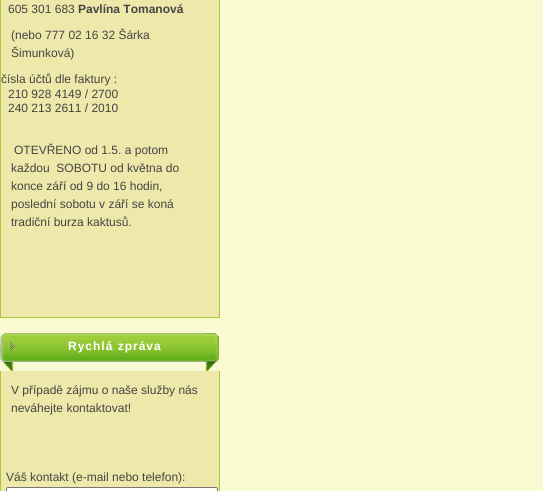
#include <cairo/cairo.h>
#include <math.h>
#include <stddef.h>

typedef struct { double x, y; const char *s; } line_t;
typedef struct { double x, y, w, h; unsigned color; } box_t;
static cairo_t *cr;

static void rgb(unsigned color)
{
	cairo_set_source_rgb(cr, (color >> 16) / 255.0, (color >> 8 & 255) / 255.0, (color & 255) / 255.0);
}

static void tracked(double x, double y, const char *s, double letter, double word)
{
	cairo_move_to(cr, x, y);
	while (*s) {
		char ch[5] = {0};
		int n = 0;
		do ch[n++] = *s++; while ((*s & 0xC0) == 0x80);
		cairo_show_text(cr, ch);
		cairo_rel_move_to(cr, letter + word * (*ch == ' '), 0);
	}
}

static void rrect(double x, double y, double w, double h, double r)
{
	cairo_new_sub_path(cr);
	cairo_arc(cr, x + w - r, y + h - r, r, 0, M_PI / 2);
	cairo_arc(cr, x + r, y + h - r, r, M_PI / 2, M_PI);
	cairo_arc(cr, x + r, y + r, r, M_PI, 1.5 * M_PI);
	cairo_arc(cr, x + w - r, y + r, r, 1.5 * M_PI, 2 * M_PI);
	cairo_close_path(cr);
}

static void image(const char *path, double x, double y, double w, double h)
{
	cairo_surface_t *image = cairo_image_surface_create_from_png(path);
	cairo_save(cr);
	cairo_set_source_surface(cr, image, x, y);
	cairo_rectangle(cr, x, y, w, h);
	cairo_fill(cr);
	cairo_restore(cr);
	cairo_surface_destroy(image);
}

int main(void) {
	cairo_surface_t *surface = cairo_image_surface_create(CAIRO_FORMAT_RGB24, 543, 491);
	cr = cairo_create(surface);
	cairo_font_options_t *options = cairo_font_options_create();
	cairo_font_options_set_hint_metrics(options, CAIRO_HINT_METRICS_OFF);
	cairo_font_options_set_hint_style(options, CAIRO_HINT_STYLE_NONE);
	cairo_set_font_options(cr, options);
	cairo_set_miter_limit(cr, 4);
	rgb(0xfafad2);
	cairo_paint(cr);
	{
		static const box_t items[] = {
			{1, 0, 218, 317, 0xeee8aa},
			{219, 0, 1, 318, 0xaec738},
			{0, 317, 220, 1, 0xaec738},
			{0, 0, 1, 318, 0xaec738},
		};
		for (size_t i = 0; i < sizeof items / sizeof *items; i++) {
			rgb(items[i].color);
			cairo_rectangle(cr, items[i].x, items[i].y, items[i].w, items[i].h);
			cairo_fill(cr);
		}
	}
	image("img/1.png", 0, 333, 220, 38);
	image("img/2.png", 10, 342, 5, 9);
	{
		static const box_t items[] = {
			{1, 371, 218, 120, 0xeee8aa},
			{219, 371, 1, 120, 0xaec738},
			{0, 371, 1, 120, 0xaec738},
		};
		for (size_t i = 0; i < sizeof items / sizeof *items; i++) {
			rgb(items[i].color);
			cairo_rectangle(cr, items[i].x, items[i].y, items[i].w, items[i].h);
			cairo_fill(cr);
		}
	}
	rgb(0xffffff);
	rrect(6.5, 487.5, 211, 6, 1.5);
	cairo_fill_preserve(cr);
	rgb(0x767676);
	cairo_set_line_width(cr, 1);
	cairo_stroke(cr);
	cairo_select_font_face(cr, "Liberation Sans", CAIRO_FONT_SLANT_NORMAL, CAIRO_FONT_WEIGHT_NORMAL);
	cairo_set_font_size(cr, 12);
	rgb(0x444444);
	cairo_move_to(cr, 8, 13);
	cairo_show_text(cr, "605 301 683");
	cairo_select_font_face(cr, "Liberation Sans", CAIRO_FONT_SLANT_NORMAL, CAIRO_FONT_WEIGHT_BOLD);
	cairo_move_to(cr, 78, 13);
	cairo_show_text(cr, "Pavlína Tomanová");
	cairo_select_font_face(cr, "Liberation Sans", CAIRO_FONT_SLANT_NORMAL, CAIRO_FONT_WEIGHT_NORMAL);
	{
		static const line_t items[] = {
			{11, 39, "(nebo 777 02 16 32 Šárka"},
			{11, 57, "Šimunková)"},
			{1, 83, "čísla účtů dle faktury :"},
			{8, 98, "210 928 4149 / 2700"},
			{8, 112, "240 213 2611 / 2010"},
			{14, 154, "OTEVŘENO od 1.5. a potom"},
			{11, 172, "každou  SOBOTU od května do"},
			{11, 190, "konce září od 9 do 16 hodin,"},
			{11, 208, "poslední sobotu v září se koná"},
			{11, 226, "tradiční burza kaktusů."},
		};
		for (size_t i = 0; i < sizeof items / sizeof *items; i++) {
			cairo_move_to(cr, items[i].x, items[i].y);
			cairo_show_text(cr, items[i].s);
		}
	}
	cairo_select_font_face(cr, "Liberation Sans", CAIRO_FONT_SLANT_NORMAL, CAIRO_FONT_WEIGHT_BOLD);
	rgb(0xffffff);
	tracked(68, 350, "Rychlá zpráva", 1, 0);
	cairo_select_font_face(cr, "Liberation Sans", CAIRO_FONT_SLANT_NORMAL, CAIRO_FONT_WEIGHT_NORMAL);
	rgb(0x444444);
	{
		static const line_t items[] = {
			{11, 394, "V případě zájmu o naše služby nás"},
			{11, 412, "neváhejte kontaktovat!"},
			{6, 481, "Váš kontakt (e-mail nebo telefon):"},
		};
		for (size_t i = 0; i < sizeof items / sizeof *items; i++) {
			cairo_move_to(cr, items[i].x, items[i].y);
			cairo_show_text(cr, items[i].s);
		}
	}
	cairo_surface_write_to_png(surface, "page.png");
	cairo_font_options_destroy(options);
	cairo_destroy(cr);
	cairo_surface_destroy(surface);
	return 0;
}
